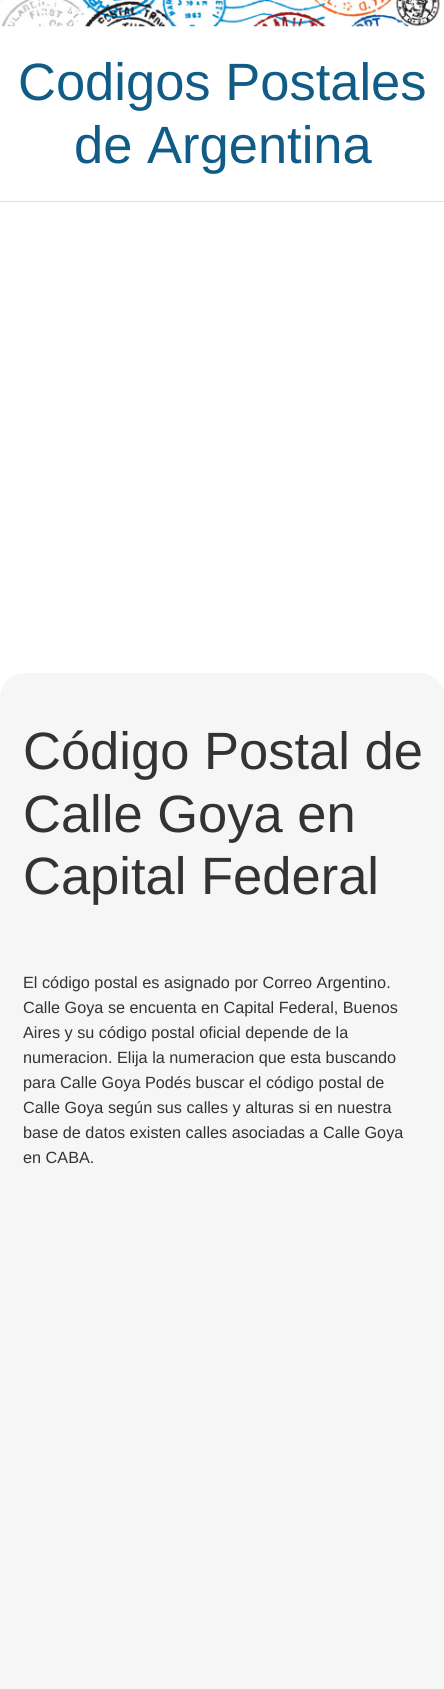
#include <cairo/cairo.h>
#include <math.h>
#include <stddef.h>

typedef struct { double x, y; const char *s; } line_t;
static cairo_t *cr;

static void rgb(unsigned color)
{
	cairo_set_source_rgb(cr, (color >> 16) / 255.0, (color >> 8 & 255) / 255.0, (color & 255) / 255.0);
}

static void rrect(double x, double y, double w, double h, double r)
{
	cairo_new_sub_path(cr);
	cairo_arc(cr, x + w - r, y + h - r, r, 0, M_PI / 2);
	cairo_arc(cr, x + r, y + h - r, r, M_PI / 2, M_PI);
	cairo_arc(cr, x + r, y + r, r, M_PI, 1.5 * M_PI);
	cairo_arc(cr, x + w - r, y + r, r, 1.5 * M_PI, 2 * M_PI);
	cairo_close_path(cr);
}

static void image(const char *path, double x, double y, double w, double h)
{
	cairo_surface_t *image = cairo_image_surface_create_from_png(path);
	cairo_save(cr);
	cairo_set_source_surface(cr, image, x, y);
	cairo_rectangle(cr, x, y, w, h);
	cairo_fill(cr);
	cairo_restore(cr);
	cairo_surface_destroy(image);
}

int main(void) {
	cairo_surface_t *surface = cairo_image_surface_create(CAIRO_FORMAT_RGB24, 444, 1689);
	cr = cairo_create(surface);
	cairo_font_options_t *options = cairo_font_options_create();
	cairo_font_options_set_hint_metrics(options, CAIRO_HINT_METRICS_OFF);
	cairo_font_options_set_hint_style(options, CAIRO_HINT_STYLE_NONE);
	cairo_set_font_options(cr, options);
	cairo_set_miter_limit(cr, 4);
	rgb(0xffffff);
	cairo_paint(cr);
	image("img/1.png", 1, 0, 440, 27);
	rgb(0xdddddd);
	cairo_rectangle(cr, 0, 201, 444, 1);
	cairo_fill(cr);
	rgb(0xf7f6f6);
	rrect(0, 673, 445, 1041, 25);
	cairo_fill(cr);
	cairo_select_font_face(cr, "Liberation Sans", CAIRO_FONT_SLANT_NORMAL, CAIRO_FONT_WEIGHT_NORMAL);
	cairo_set_font_size(cr, 52.5);
	rgb(0x105c86);
	cairo_move_to(cr, 18, 100);
	cairo_show_text(cr, "Codigos Postales");
	cairo_move_to(cr, 74, 163);
	cairo_show_text(cr, "de Argentina");
	rgb(0x333333);
	{
		static const line_t items[] = {
			{23, 769, "Código Postal de"},
			{23, 832, "Calle Goya en"},
			{23, 894, "Capital Federal"},
		};
		for (size_t i = 0; i < sizeof items / sizeof *items; i++) {
			cairo_move_to(cr, items[i].x, items[i].y);
			cairo_show_text(cr, items[i].s);
		}
	}
	cairo_set_font_size(cr, 16.25);
	{
		static const line_t items[] = {
			{23, 988, "El código postal es asignado por Correo Argentino."},
			{23, 1013, "Calle Goya se encuenta en Capital Federal, Buenos"},
			{23, 1038, "Aires y su código postal oficial depende de la"},
			{23, 1063, "numeracion. Elija la numeracion que esta buscando"},
			{23, 1088, "para Calle Goya Podés buscar el código postal de"},
			{23, 1113, "Calle Goya según sus calles y alturas si en nuestra"},
			{23, 1138, "base de datos existen calles asociadas a Calle Goya"},
			{23, 1163, "en CABA."},
		};
		for (size_t i = 0; i < sizeof items / sizeof *items; i++) {
			cairo_move_to(cr, items[i].x, items[i].y);
			cairo_show_text(cr, items[i].s);
		}
	}
	cairo_surface_write_to_png(surface, "page.png");
	cairo_font_options_destroy(options);
	cairo_destroy(cr);
	cairo_surface_destroy(surface);
	return 0;
}
